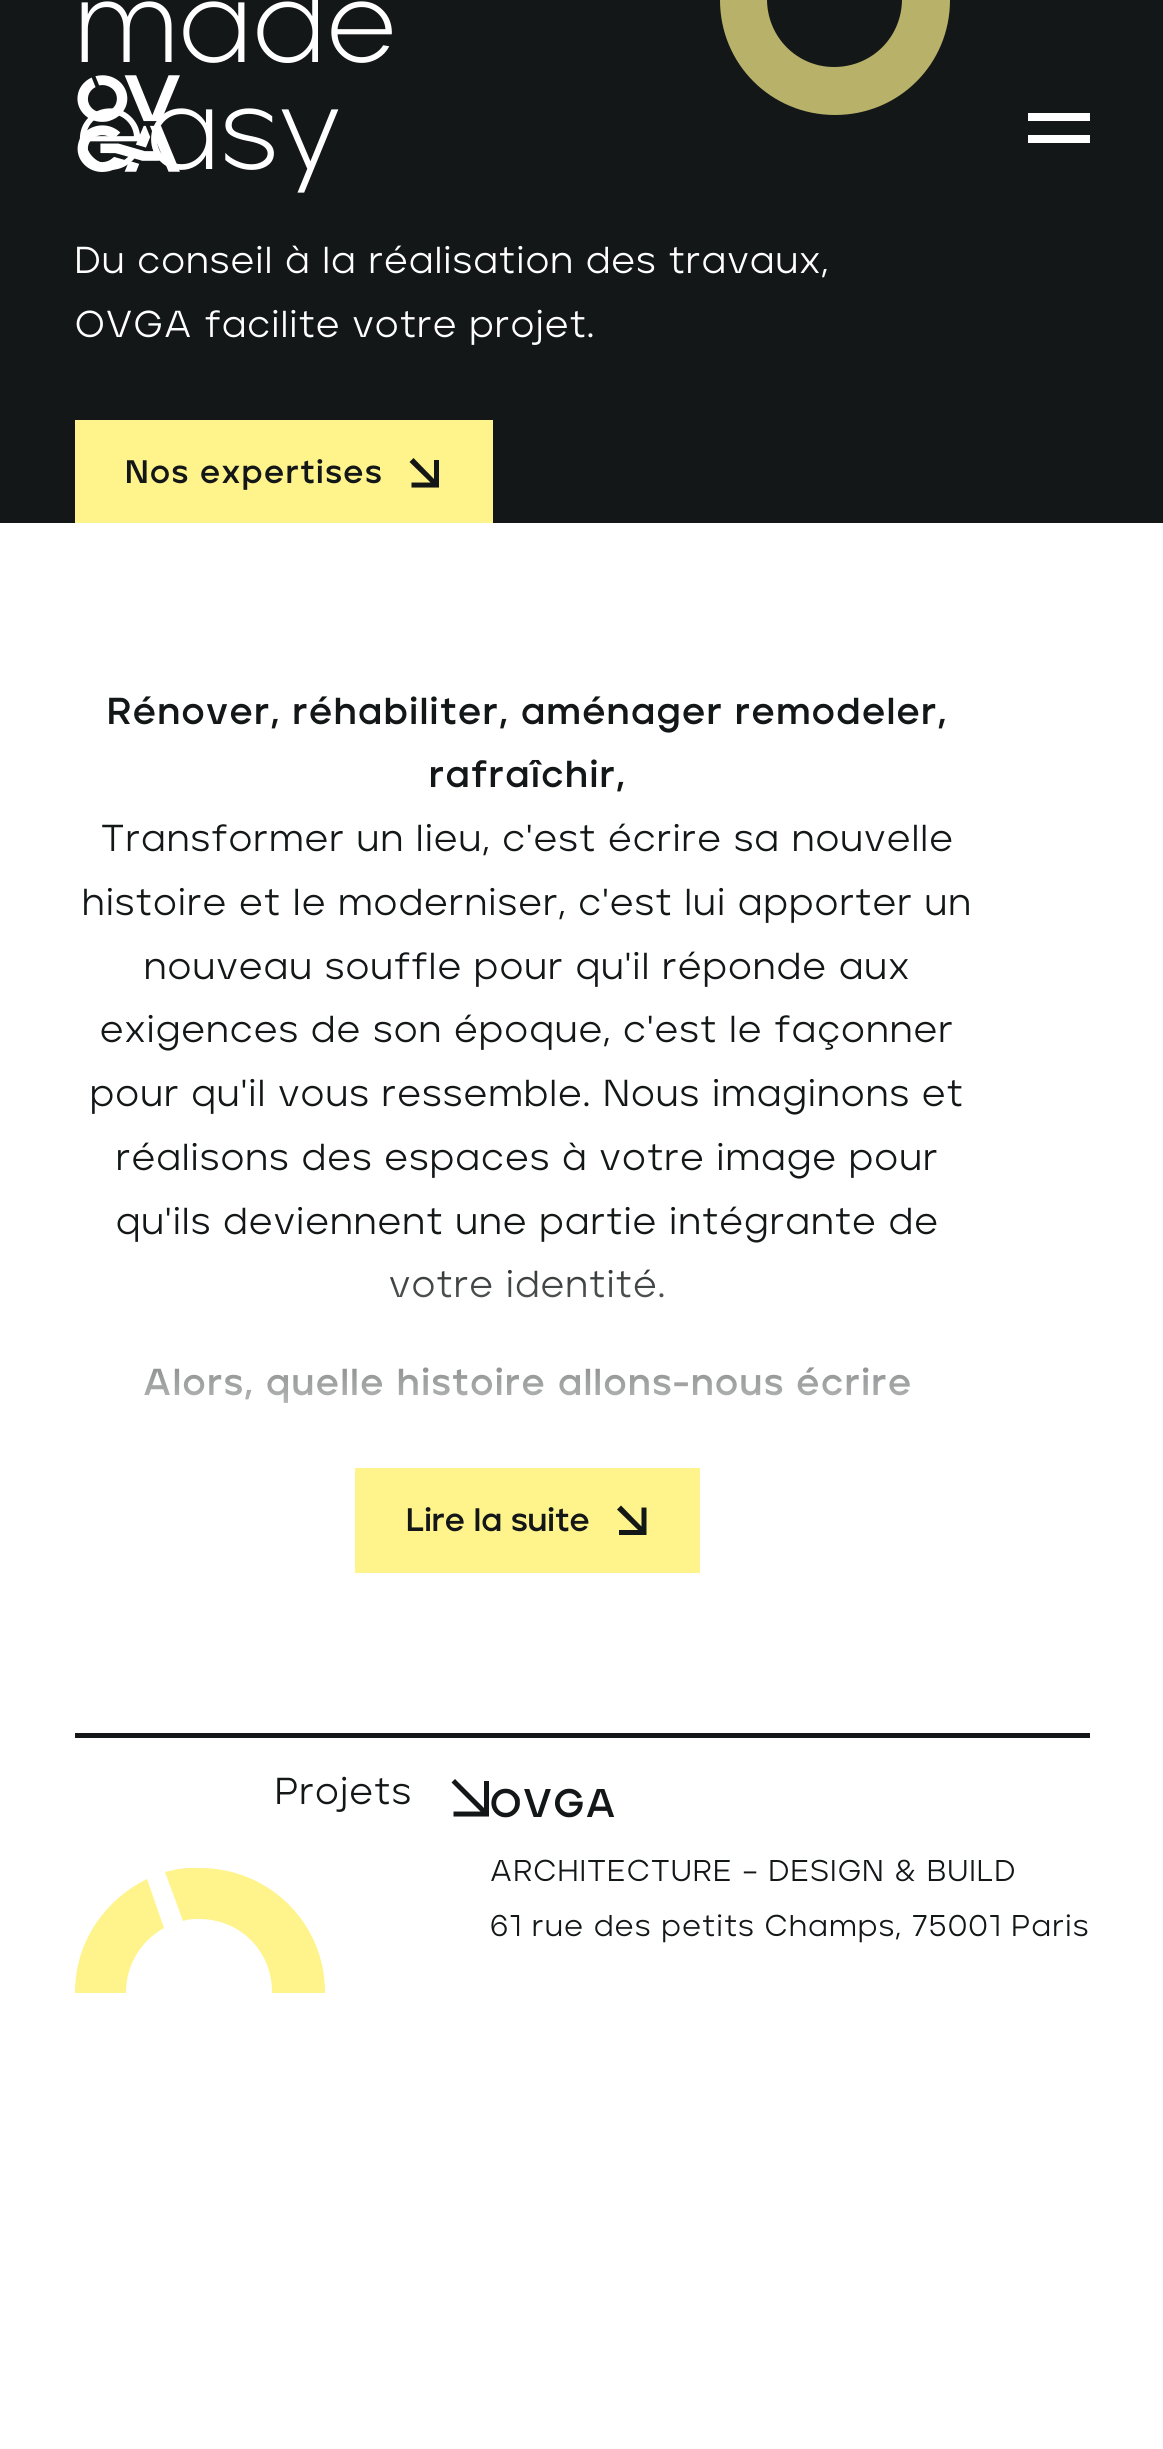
#include <cairo/cairo.h>
#include <math.h>
#include <stddef.h>

typedef struct { double x, y; const char *s; } line_t;
typedef struct { double x, y, w, h; unsigned color; } box_t;
static cairo_t *cr;

static void rgb(unsigned color)
{
	cairo_set_source_rgb(cr, (color >> 16) / 255.0, (color >> 8 & 255) / 255.0, (color & 255) / 255.0);
}

static void tracked(double x, double y, const char *s, double letter, double word)
{
	cairo_move_to(cr, x, y);
	while (*s) {
		char ch[5] = {0};
		int n = 0;
		do ch[n++] = *s++; while ((*s & 0xC0) == 0x80);
		cairo_show_text(cr, ch);
		cairo_rel_move_to(cr, letter + word * (*ch == ' '), 0);
	}
}

static void image(const char *path, double x, double y, double w, double h)
{
	cairo_surface_t *image = cairo_image_surface_create_from_png(path);
	cairo_save(cr);
	cairo_set_source_surface(cr, image, x, y);
	cairo_rectangle(cr, x, y, w, h);
	cairo_fill(cr);
	cairo_restore(cr);
	cairo_surface_destroy(image);
}

int main(void) {
	cairo_surface_t *surface = cairo_image_surface_create(CAIRO_FORMAT_RGB24, 1163, 2449);
	cr = cairo_create(surface);
	cairo_font_options_t *options = cairo_font_options_create();
	cairo_font_options_set_hint_metrics(options, CAIRO_HINT_METRICS_OFF);
	cairo_font_options_set_hint_style(options, CAIRO_HINT_STYLE_NONE);
	cairo_set_font_options(cr, options);
	cairo_set_miter_limit(cr, 4);
	cairo_pattern_t *gradient;
	rgb(0xffffff);
	cairo_paint(cr);
	rgb(0x131718);
	cairo_rectangle(cr, 0, 0, 1163, 523);
	cairo_fill(cr);
	rgb(0xfff38b);
	cairo_rectangle(cr, 75, 420, 418, 103);
	cairo_fill(cr);
	rgb(0x131718);
	cairo_set_fill_rule(cr, CAIRO_FILL_RULE_EVEN_ODD);
	cairo_new_path(cr);
	cairo_move_to(cr, 413.5, 458);
	cairo_line_to(cr, 434, 479);
	cairo_line_to(cr, 434, 460);
	cairo_line_to(cr, 439, 460);
	cairo_line_to(cr, 439, 487.5);
	cairo_line_to(cr, 411.5, 487.5);
	cairo_line_to(cr, 411.5, 482.5);
	cairo_line_to(cr, 430.5, 482.5);
	cairo_line_to(cr, 409.5, 462);
	cairo_close_path(cr);
	cairo_fill(cr);
	rgb(0xb8b169);
	cairo_set_fill_rule(cr, CAIRO_FILL_RULE_WINDING);
	cairo_new_path(cr);
	cairo_move_to(cr, 786, -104);
	cairo_curve_to(cr, 747, -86, 720, -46, 720, 0);
	cairo_curve_to(cr, 720, 64, 771, 115, 835, 115);
	cairo_curve_to(cr, 899, 115, 950, 64, 950, 0);
	cairo_curve_to(cr, 950, -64, 899, -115, 835, -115);
	cairo_curve_to(cr, 824, -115, 813, -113, 803, -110);
	cairo_line_to(cr, 819, -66);
	cairo_curve_to(cr, 824, -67, 829, -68, 834, -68);
	cairo_curve_to(cr, 872, -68, 902, -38, 902, -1);
	cairo_curve_to(cr, 902, 37, 872, 67, 834, 67);
	cairo_curve_to(cr, 797, 67, 767, 37, 767, -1);
	cairo_curve_to(cr, 767, -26, 781, -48, 802, -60);
	cairo_close_path(cr);
	cairo_fill(cr);
	{
		static const box_t items[] = {
			{1028, 113, 62, 8, 0xffffff},
			{1028, 135, 62, 8, 0xffffff},
			{355, 1468, 345, 105, 0xfff38b},
		};
		for (size_t i = 0; i < sizeof items / sizeof *items; i++) {
			rgb(items[i].color);
			cairo_rectangle(cr, items[i].x, items[i].y, items[i].w, items[i].h);
			cairo_fill(cr);
		}
	}
	rgb(0x131718);
	cairo_set_fill_rule(cr, CAIRO_FILL_RULE_EVEN_ODD);
	cairo_new_path(cr);
	cairo_move_to(cr, 621, 1505.5);
	cairo_line_to(cr, 641.5, 1526.5);
	cairo_line_to(cr, 641.5, 1507.5);
	cairo_line_to(cr, 646.5, 1507.5);
	cairo_line_to(cr, 646.5, 1535);
	cairo_line_to(cr, 619, 1535);
	cairo_line_to(cr, 619, 1530);
	cairo_line_to(cr, 638, 1530);
	cairo_line_to(cr, 617, 1509.5);
	cairo_close_path(cr);
	cairo_fill(cr);
	cairo_save(cr);
	cairo_set_fill_rule(cr, CAIRO_FILL_RULE_WINDING);
	cairo_rectangle(cr, 75, 1868, 250, 125);
	cairo_clip(cr);
	rgb(0xfff38b);
	cairo_new_path(cr);
	cairo_move_to(cr, 147, 1879);
	cairo_curve_to(cr, 104, 1900, 75, 1943, 75, 1992);
	cairo_curve_to(cr, 75, 2062, 131, 2118, 200, 2118);
	cairo_curve_to(cr, 269, 2118, 325, 2062, 325, 1992);
	cairo_curve_to(cr, 325, 1923, 269, 1868, 200, 1868);
	cairo_curve_to(cr, 188, 1867, 177, 1869, 165, 1872);
	cairo_line_to(cr, 183, 1921);
	cairo_curve_to(cr, 188, 1919, 194, 1919, 199, 1919);
	cairo_curve_to(cr, 240, 1919, 272, 1951, 272, 1992);
	cairo_curve_to(cr, 272, 2032, 240, 2065, 199, 2065);
	cairo_curve_to(cr, 159, 2065, 126, 2032, 126, 1992);
	cairo_curve_to(cr, 126, 1964, 142, 1940, 164, 1928);
	cairo_close_path(cr);
	cairo_fill(cr);
	cairo_restore(cr);
	cairo_rectangle(cr, 75, 1733, 1015, 5);
	cairo_fill(cr);
	cairo_new_path(cr);
	cairo_move_to(cr, 455, 1779);
	cairo_line_to(cr, 484, 1808);
	cairo_line_to(cr, 484, 1781);
	cairo_line_to(cr, 489, 1781);
	cairo_line_to(cr, 489, 1816.5);
	cairo_line_to(cr, 453.5, 1816.5);
	cairo_line_to(cr, 453.5, 1811.5);
	cairo_line_to(cr, 480.5, 1811.5);
	cairo_line_to(cr, 451.5, 1782.5);
	cairo_close_path(cr);
	cairo_fill(cr);
	cairo_select_font_face(cr, "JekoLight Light", CAIRO_FONT_SLANT_NORMAL, CAIRO_FONT_WEIGHT_NORMAL);
	cairo_set_font_size(cr, 112.5);
	rgb(0xffffff);
	tracked(75, 62, "made", 1.5, 0);
	tracked(75, 169, "easy", 1.5, 0);
	cairo_select_font_face(cr, "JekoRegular", CAIRO_FONT_SLANT_NORMAL, CAIRO_FONT_WEIGHT_NORMAL);
	cairo_set_font_size(cr, 37.5);
	tracked(75, 273, "Du conseil à la réalisation des travaux,", 1.5, 0);
	tracked(75, 337, "OVGA facilite votre projet.", 1.5, 0);
	cairo_select_font_face(cr, "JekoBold", CAIRO_FONT_SLANT_NORMAL, CAIRO_FONT_WEIGHT_BOLD);
	cairo_set_font_size(cr, 32.5);
	rgb(0x131718);
	tracked(125, 483, "Nos expertises", 1.5, 0);
	image("img/1.png", 77, 75, 103, 97);
	cairo_set_font_size(cr, 37.5);
	tracked(107, 724, "Rénover, réhabiliter, aménager remodeler,", 1.5, 0);
	tracked(429, 787, "rafraîchir,", 1.5, 0);
	cairo_select_font_face(cr, "JekoRegular", CAIRO_FONT_SLANT_NORMAL, CAIRO_FONT_WEIGHT_NORMAL);
	{
		static const line_t items[] = {
			{101, 851, "Transformer un lieu, c'est écrire sa nouvelle"},
			{82, 915, "histoire et le moderniser, c'est lui apporter un"},
			{144, 979, "nouveau souffle pour qu'il réponde aux"},
			{100, 1042, "exigences de son époque, c'est le façonner"},
			{90, 1106, "pour qu'il vous ressemble. Nous imaginons et"},
			{116, 1170, "réalisons des espaces à votre image pour"},
			{116, 1234, "qu'ils deviennent une partie intégrante de"},
			{389, 1297, "votre identité."},
		};
		for (size_t i = 0; i < sizeof items / sizeof *items; i++) {
			tracked(items[i].x, items[i].y, items[i].s, 1.5, 0);
		}
	}
	cairo_select_font_face(cr, "JekoBold", CAIRO_FONT_SLANT_NORMAL, CAIRO_FONT_WEIGHT_BOLD);
	tracked(143, 1395, "Alors, quelle histoire allons-nous écrire", 1.5, 0);
	gradient = cairo_pattern_create_linear(528, 1235, 528, 1408);
	cairo_pattern_add_color_stop_rgba(gradient, 0, 1, 1, 1, 0);
	cairo_pattern_add_color_stop_rgba(gradient, 1, 1, 1, 1, 0.7);
	cairo_set_source(cr, gradient);
	cairo_pattern_destroy(gradient);
	cairo_rectangle(cr, 135, 1240, 775, 163);
	cairo_fill(cr);
	cairo_set_font_size(cr, 32.5);
	rgb(0x131718);
	cairo_move_to(cr, 406, 1531);
	cairo_show_text(cr, "Lire la suite");
	cairo_select_font_face(cr, "JekoRegular", CAIRO_FONT_SLANT_NORMAL, CAIRO_FONT_WEIGHT_NORMAL);
	cairo_set_font_size(cr, 37.5);
	tracked(275, 1804, "Projets", 1.5, 0);
	cairo_select_font_face(cr, "JekoBold", CAIRO_FONT_SLANT_NORMAL, CAIRO_FONT_WEIGHT_BOLD);
	cairo_set_font_size(cr, 40);
	tracked(490, 1817, "OVGA", 1.5, 0);
	cairo_select_font_face(cr, "JekoRegular", CAIRO_FONT_SLANT_NORMAL, CAIRO_FONT_WEIGHT_NORMAL);
	cairo_set_font_size(cr, 30);
	tracked(490, 1881, "ARCHITECTURE – DESIGN & BUILD", 1.5, 0);
	tracked(490, 1936, "61 rue des petits Champs, 75001 Paris", 1.5, 0);
	cairo_surface_write_to_png(surface, "page.png");
	cairo_font_options_destroy(options);
	cairo_destroy(cr);
	cairo_surface_destroy(surface);
	return 0;
}
